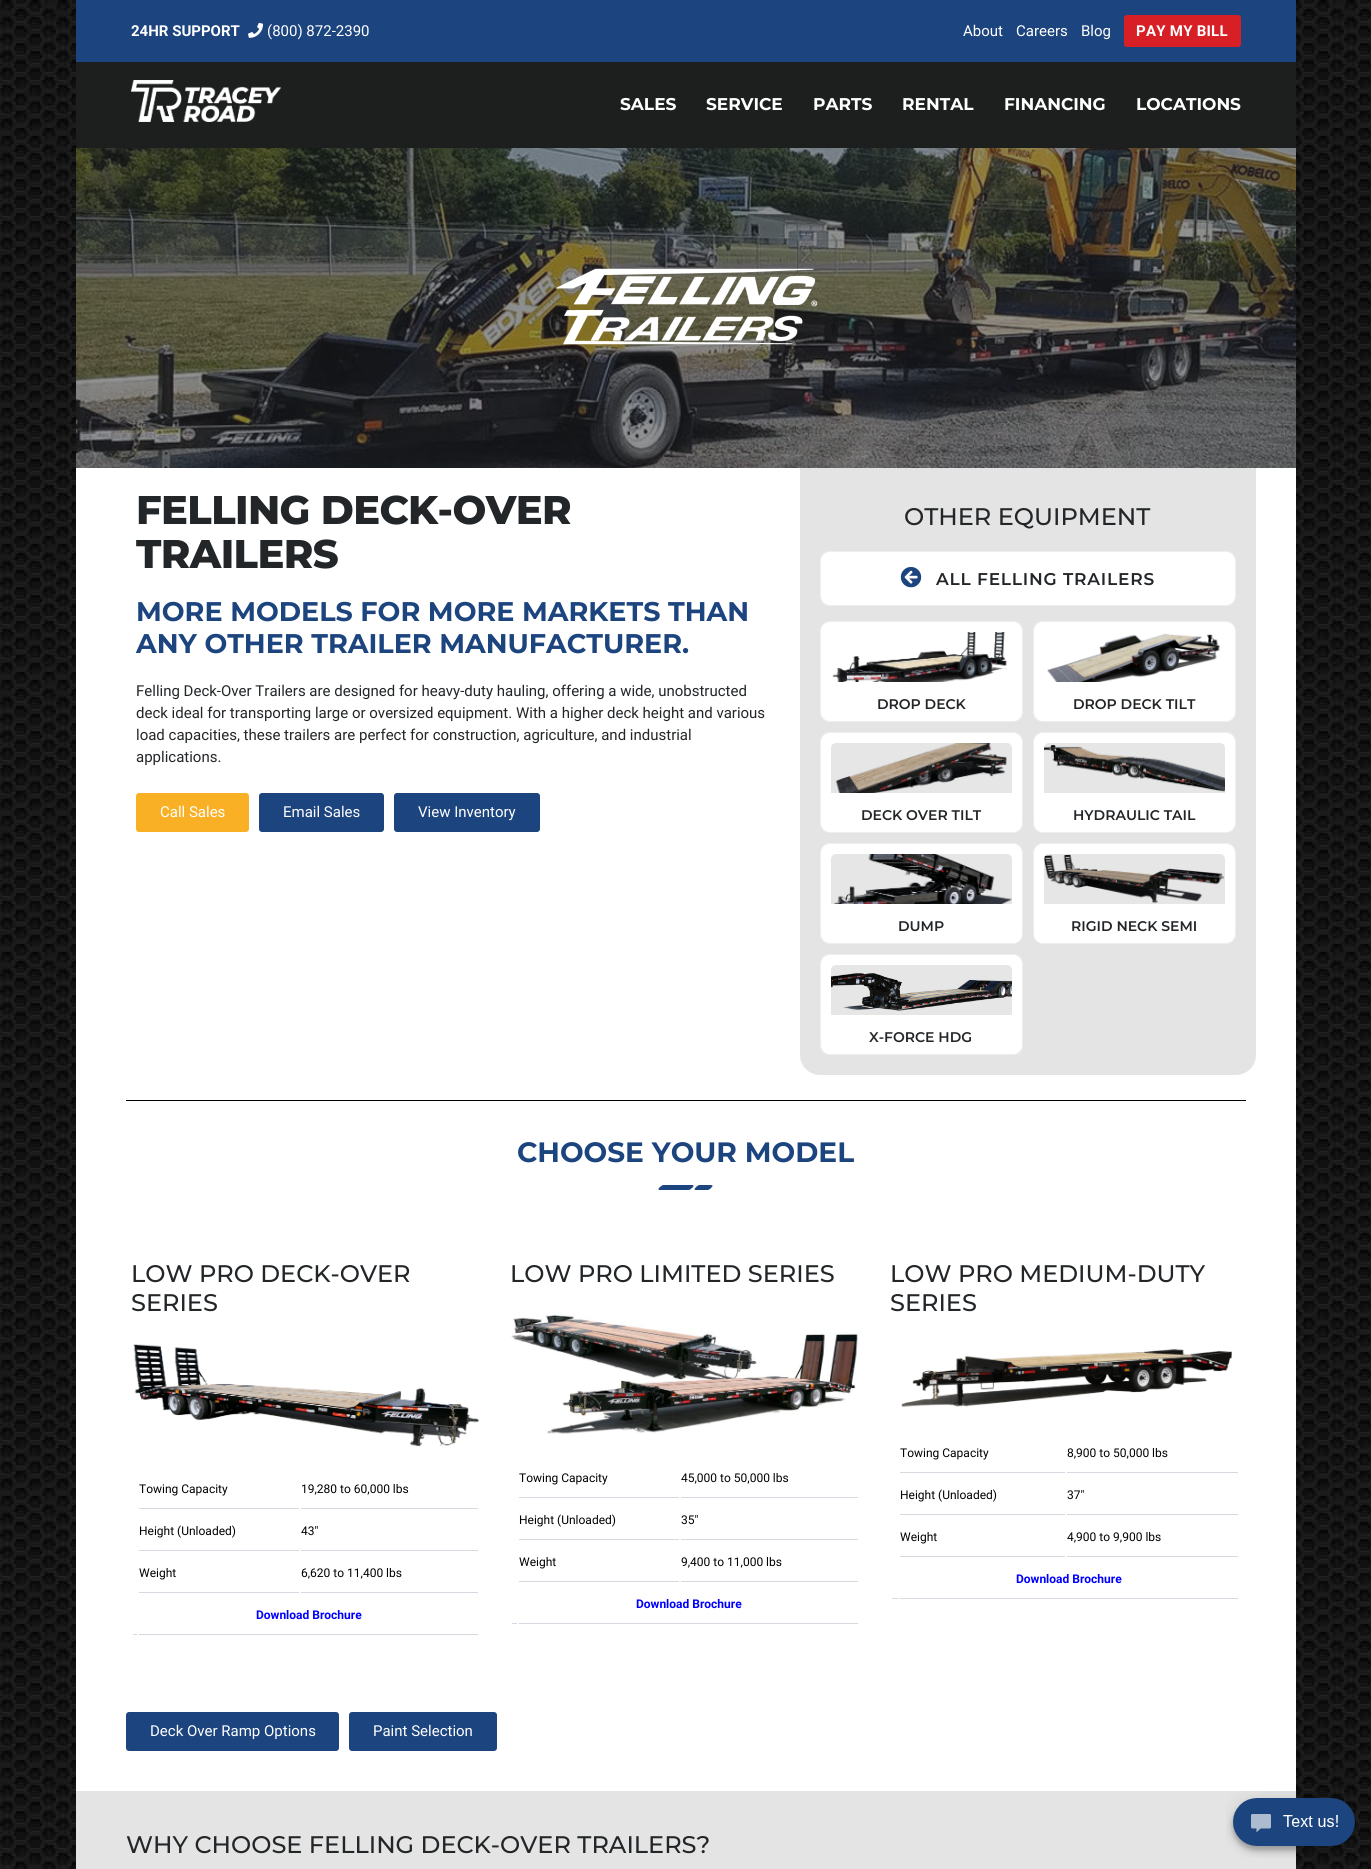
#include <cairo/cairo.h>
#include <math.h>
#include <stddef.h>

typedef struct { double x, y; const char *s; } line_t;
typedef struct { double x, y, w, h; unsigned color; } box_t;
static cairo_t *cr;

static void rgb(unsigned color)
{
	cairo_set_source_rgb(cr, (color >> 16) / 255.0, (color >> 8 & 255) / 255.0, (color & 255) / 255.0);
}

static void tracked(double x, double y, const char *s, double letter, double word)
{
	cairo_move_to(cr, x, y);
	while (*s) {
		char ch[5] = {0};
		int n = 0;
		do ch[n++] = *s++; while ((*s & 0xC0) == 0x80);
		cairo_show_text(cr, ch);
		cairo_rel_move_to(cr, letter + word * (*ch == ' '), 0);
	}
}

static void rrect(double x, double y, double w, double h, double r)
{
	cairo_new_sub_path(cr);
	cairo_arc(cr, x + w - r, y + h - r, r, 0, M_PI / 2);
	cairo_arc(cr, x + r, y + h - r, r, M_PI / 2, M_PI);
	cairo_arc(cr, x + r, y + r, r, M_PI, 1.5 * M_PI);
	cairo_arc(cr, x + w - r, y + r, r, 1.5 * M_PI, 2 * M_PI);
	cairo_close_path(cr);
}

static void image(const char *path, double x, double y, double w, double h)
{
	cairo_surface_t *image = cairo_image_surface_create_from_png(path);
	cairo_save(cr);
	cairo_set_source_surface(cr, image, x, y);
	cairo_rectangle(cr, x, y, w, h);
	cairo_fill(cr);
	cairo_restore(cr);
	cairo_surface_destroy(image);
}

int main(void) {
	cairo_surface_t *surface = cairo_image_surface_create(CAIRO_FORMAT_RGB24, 1371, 1869);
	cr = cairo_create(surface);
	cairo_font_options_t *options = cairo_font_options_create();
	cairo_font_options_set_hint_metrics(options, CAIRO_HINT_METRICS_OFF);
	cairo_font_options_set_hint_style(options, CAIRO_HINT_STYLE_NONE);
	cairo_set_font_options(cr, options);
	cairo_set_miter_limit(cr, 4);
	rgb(0xffffff);
	cairo_paint(cr);
	image("img/1.png", 0, 0, 1371, 1869);
	rgb(0xffffff);
	cairo_rectangle(cr, 76, 468, 1220, 1323);
	cairo_fill(cr);
	rgb(0x1c447e);
	cairo_rectangle(cr, 76, 0, 1220, 62);
	cairo_fill(cr);
	image("img/2.png", 248, 22, 15, 16);
	rgb(0xd81f26);
	rrect(1124, 15, 117, 32, 3);
	cairo_fill(cr);
	rgb(0x1d1f1f);
	cairo_rectangle(cr, 76, 62, 1220, 86);
	cairo_fill(cr);
	image("img/3.png", 131, 80, 150, 42);
	image("img/4.png", 76, 148, 1220, 320);
	image("img/5.png", 556, 268, 262, 77);
	rgb(0xfab025);
	rrect(136, 793, 113, 39, 3);
	cairo_fill(cr);
	rgb(0x1c447e);
	rrect(259, 793, 125, 39, 3);
	cairo_fill(cr);
	rrect(394, 793, 146, 39, 3);
	cairo_fill(cr);
	rgb(0xe4e4e4);
	cairo_new_path(cr);
	cairo_move_to(cr, 800, 468);
	cairo_line_to(cr, 1256, 468);
	cairo_line_to(cr, 1256, 1055);
	cairo_curve_to(cr, 1256, 1066, 1247, 1075, 1236, 1075);
	cairo_line_to(cr, 820, 1075);
	cairo_curve_to(cr, 809, 1075, 800, 1066, 800, 1055);
	cairo_close_path(cr);
	cairo_fill(cr);
	rgb(0xffffff);
	rrect(820.5, 551.5, 415, 54, 9.5);
	cairo_fill_preserve(cr);
	rgb(0xeeeeee);
	cairo_set_line_width(cr, 1);
	cairo_stroke(cr);
	image("img/6.png", 900, 567, 22, 21);
	rgb(0xffffff);
	rrect(820.5, 621.5, 202, 100, 9.5);
	cairo_fill_preserve(cr);
	rgb(0xeeeeee);
	cairo_stroke(cr);
	image("img/7.png", 832, 632, 176, 50);
	rgb(0xffffff);
	rrect(1033.5, 621.5, 202, 100, 9.5);
	cairo_fill_preserve(cr);
	rgb(0xeeeeee);
	cairo_stroke(cr);
	image("img/8.png", 1047, 633, 174, 49);
	rgb(0xffffff);
	rrect(820.5, 732.5, 202, 100, 9.5);
	cairo_fill_preserve(cr);
	rgb(0xeeeeee);
	cairo_stroke(cr);
	image("img/9.png", 831, 743, 181, 50);
	rgb(0xffffff);
	rrect(1033.5, 732.5, 202, 100, 9.5);
	cairo_fill_preserve(cr);
	rgb(0xeeeeee);
	cairo_stroke(cr);
	image("img/10.png", 1044, 743, 181, 50);
	rgb(0xffffff);
	rrect(820.5, 843.5, 202, 100, 9.5);
	cairo_fill_preserve(cr);
	rgb(0xeeeeee);
	cairo_stroke(cr);
	image("img/11.png", 831, 854, 181, 50);
	rgb(0xffffff);
	rrect(1033.5, 843.5, 202, 100, 9.5);
	cairo_fill_preserve(cr);
	rgb(0xeeeeee);
	cairo_stroke(cr);
	image("img/12.png", 1044, 854, 181, 50);
	rgb(0xffffff);
	rrect(820.5, 954.5, 202, 100, 9.5);
	cairo_fill_preserve(cr);
	rgb(0xeeeeee);
	cairo_stroke(cr);
	image("img/13.png", 831, 965, 181, 50);
	rgb(0x000000);
	cairo_rectangle(cr, 126, 1100, 1120, 1);
	cairo_fill(cr);
	rgb(0x1c447e);
	cairo_new_path(cr);
	cairo_move_to(cr, 663.5, 1185);
	cairo_line_to(cr, 692.5, 1185);
	cairo_curve_to(cr, 693.5, 1185, 694, 1186, 693, 1187);
	cairo_line_to(cr, 692, 1188);
	cairo_curve_to(cr, 691, 1189, 689.5, 1190, 688.5, 1190);
	cairo_line_to(cr, 659.5, 1190);
	cairo_curve_to(cr, 658.5, 1190, 658, 1189, 659, 1188);
	cairo_line_to(cr, 660, 1187);
	cairo_curve_to(cr, 661, 1186, 662.5, 1185, 663.5, 1185);
	cairo_close_path(cr);
	cairo_move_to(cr, 699.5, 1185);
	cairo_line_to(cr, 709.5, 1185);
	cairo_curve_to(cr, 713, 1185, 713.5, 1185.5, 711, 1188);
	cairo_curve_to(cr, 710.5, 1189, 709, 1189.5, 708, 1190);
	cairo_line_to(cr, 695.5, 1190);
	cairo_curve_to(cr, 692.5, 1190, 697.5, 1185, 699.5, 1185);
	cairo_close_path(cr);
	cairo_fill(cr);
	image("img/14.png", 133, 1344, 347, 103);
	{
		static const box_t items[] = {
			{139, 1508, 160, 1, 0xd5d9e0},
			{301, 1508, 177, 1, 0xd5d9e0},
			{133, 1634, 4, 1, 0xd5d9e0},
			{139, 1550, 160, 1, 0xd5d9e0},
			{301, 1550, 177, 1, 0xd5d9e0},
			{139, 1592, 160, 1, 0xd5d9e0},
			{301, 1592, 177, 1, 0xd5d9e0},
			{139, 1634, 339, 1, 0xd5d9e0},
		};
		for (size_t i = 0; i < sizeof items / sizeof *items; i++) {
			rgb(items[i].color);
			cairo_rectangle(cr, items[i].x, items[i].y, items[i].w, items[i].h);
			cairo_fill(cr);
		}
	}
	image("img/15.png", 511, 1314, 349, 120);
	{
		static const box_t items[] = {
			{519, 1497, 160, 1, 0xd5d9e0},
			{681, 1497, 177, 1, 0xd5d9e0},
			{512, 1623, 5, 1, 0xd5d9e0},
			{519, 1539, 160, 1, 0xd5d9e0},
			{681, 1539, 177, 1, 0xd5d9e0},
			{519, 1581, 160, 1, 0xd5d9e0},
			{681, 1581, 177, 1, 0xd5d9e0},
			{519, 1623, 339, 1, 0xd5d9e0},
		};
		for (size_t i = 0; i < sizeof items / sizeof *items; i++) {
			rgb(items[i].color);
			cairo_rectangle(cr, items[i].x, items[i].y, items[i].w, items[i].h);
			cairo_fill(cr);
		}
	}
	image("img/16.png", 901, 1348, 332, 59);
	{
		static const box_t items[] = {
			{900, 1472, 165, 1, 0xd5d9e0},
			{1067, 1472, 171, 1, 0xd5d9e0},
			{892, 1598, 6, 1, 0xd5d9e0},
			{900, 1514, 165, 1, 0xd5d9e0},
			{1067, 1514, 171, 1, 0xd5d9e0},
			{900, 1556, 165, 1, 0xd5d9e0},
			{1067, 1556, 171, 1, 0xd5d9e0},
			{900, 1598, 338, 1, 0xd5d9e0},
		};
		for (size_t i = 0; i < sizeof items / sizeof *items; i++) {
			rgb(items[i].color);
			cairo_rectangle(cr, items[i].x, items[i].y, items[i].w, items[i].h);
			cairo_fill(cr);
		}
	}
	rgb(0x1c447e);
	rrect(126, 1712, 213, 39, 3);
	cairo_fill(cr);
	rrect(349, 1712, 148, 39, 3);
	cairo_fill(cr);
	rgb(0xe4e4e4);
	cairo_rectangle(cr, 76, 1791, 1220, 78);
	cairo_fill(cr);
	image("img/17.png", 1226, 1791, 129, 67);
	cairo_select_font_face(cr, "Roboto", CAIRO_FONT_SLANT_NORMAL, CAIRO_FONT_WEIGHT_BOLD);
	cairo_set_font_size(cr, 15);
	rgb(0xffffff);
	cairo_move_to(cr, 131, 36);
	cairo_show_text(cr, "24HR SUPPORT");
	cairo_select_font_face(cr, "Roboto", CAIRO_FONT_SLANT_NORMAL, CAIRO_FONT_WEIGHT_NORMAL);
	{
		static const line_t items[] = {
			{267, 36, "(800) 872-2390"},
			{963, 36, "About"},
			{1016, 36, "Careers"},
			{1081, 36, "Blog"},
		};
		for (size_t i = 0; i < sizeof items / sizeof *items; i++) {
			cairo_move_to(cr, items[i].x, items[i].y);
			cairo_show_text(cr, items[i].s);
		}
	}
	cairo_select_font_face(cr, "Roboto", CAIRO_FONT_SLANT_NORMAL, CAIRO_FONT_WEIGHT_BOLD);
	tracked(1136, 36, "PAY MY BILL", 0.25, 0);
	cairo_select_font_face(cr, "Montserrat", CAIRO_FONT_SLANT_NORMAL, CAIRO_FONT_WEIGHT_BOLD);
	cairo_set_font_size(cr, 17);
	{
		static const line_t items[] = {
			{620, 110, "SALES"},
			{706, 110, "SERVICE"},
			{813, 110, "PARTS"},
			{902, 110, "RENTAL"},
			{1004, 110, "FINANCING"},
			{1136, 110, "LOCATIONS"},
		};
		for (size_t i = 0; i < sizeof items / sizeof *items; i++) {
			cairo_move_to(cr, items[i].x, items[i].y);
			cairo_show_text(cr, items[i].s);
		}
	}
	cairo_select_font_face(cr, "Montserrat ExtraBold", CAIRO_FONT_SLANT_NORMAL, CAIRO_FONT_WEIGHT_NORMAL);
	cairo_set_font_size(cr, 40);
	rgb(0x232628);
	tracked(136, 524, "FELLING DECK-OVER", -0.6, 0);
	tracked(136, 568, "TRAILERS", -0.6, 0);
	cairo_select_font_face(cr, "Montserrat", CAIRO_FONT_SLANT_NORMAL, CAIRO_FONT_WEIGHT_BOLD);
	cairo_set_font_size(cr, 27);
	rgb(0x1c447e);
	cairo_move_to(cr, 136, 621);
	cairo_show_text(cr, "MORE MODELS FOR MORE MARKETS THAN");
	cairo_move_to(cr, 136, 653);
	cairo_show_text(cr, "ANY OTHER TRAILER MANUFACTURER.");
	cairo_select_font_face(cr, "Roboto", CAIRO_FONT_SLANT_NORMAL, CAIRO_FONT_WEIGHT_NORMAL);
	cairo_set_font_size(cr, 15);
	rgb(0x232628);
	{
		static const line_t items[] = {
			{136, 696, "Felling Deck-Over Trailers are designed for heavy-duty hauling, offering a wide, unobstructed"},
			{136, 718, "deck ideal for transporting large or oversized equipment. With a higher deck height and various"},
			{136, 740, "load capacities, these trailers are perfect for construction, agriculture, and industrial"},
			{136, 762, "applications."},
		};
		for (size_t i = 0; i < sizeof items / sizeof *items; i++) {
			cairo_move_to(cr, items[i].x, items[i].y);
			cairo_show_text(cr, items[i].s);
		}
	}
	rgb(0xffffff);
	{
		static const line_t items[] = {
			{160, 817, "Call Sales"},
			{283, 817, "Email Sales"},
			{418, 817, "View Inventory"},
		};
		for (size_t i = 0; i < sizeof items / sizeof *items; i++) {
			cairo_move_to(cr, items[i].x, items[i].y);
			cairo_show_text(cr, items[i].s);
		}
	}
	cairo_select_font_face(cr, "Montserrat Medium", CAIRO_FONT_SLANT_NORMAL, CAIRO_FONT_WEIGHT_NORMAL);
	cairo_set_font_size(cr, 24);
	rgb(0x232628);
	cairo_move_to(cr, 904, 525);
	cairo_show_text(cr, "OTHER EQUIPMENT");
	cairo_select_font_face(cr, "Montserrat SemiBold", CAIRO_FONT_SLANT_NORMAL, CAIRO_FONT_WEIGHT_NORMAL);
	cairo_set_font_size(cr, 17);
	tracked(936, 585, "ALL FELLING TRAILERS", 0.8, 0);
	cairo_set_font_size(cr, 14);
	{
		static const line_t items[] = {
			{877, 709, "DROP DECK"},
			{1073, 709, "DROP DECK TILT"},
			{861, 820, "DECK OVER TILT"},
			{1073, 820, "HYDRAULIC TAIL"},
			{898, 931, "DUMP"},
			{1071, 931, "RIGID NECK SEMI"},
			{869, 1042, "X-FORCE HDG"},
		};
		for (size_t i = 0; i < sizeof items / sizeof *items; i++) {
			cairo_move_to(cr, items[i].x, items[i].y);
			cairo_show_text(cr, items[i].s);
		}
	}
	cairo_select_font_face(cr, "Montserrat", CAIRO_FONT_SLANT_NORMAL, CAIRO_FONT_WEIGHT_BOLD);
	cairo_set_font_size(cr, 28);
	rgb(0x1c447e);
	cairo_move_to(cr, 517, 1162);
	cairo_show_text(cr, "CHOOSE YOUR MODEL");
	cairo_select_font_face(cr, "Montserrat Medium", CAIRO_FONT_SLANT_NORMAL, CAIRO_FONT_WEIGHT_NORMAL);
	cairo_set_font_size(cr, 24);
	rgb(0x232628);
	cairo_move_to(cr, 131, 1282);
	cairo_show_text(cr, "LOW PRO DECK-OVER");
	cairo_move_to(cr, 131, 1311);
	cairo_show_text(cr, "SERIES");
	cairo_select_font_face(cr, "Roboto", CAIRO_FONT_SLANT_NORMAL, CAIRO_FONT_WEIGHT_NORMAL);
	cairo_set_font_size(cr, 12);
	rgb(0x000000);
	{
		static const line_t items[] = {
			{139, 1493, "Towing Capacity"},
			{301, 1493, "19,280 to 60,000 lbs"},
			{139, 1535, "Height (Unloaded)"},
			{301, 1535, "43″"},
			{139, 1577, "Weight"},
			{301, 1577, "6,620 to 11,400 lbs"},
		};
		for (size_t i = 0; i < sizeof items / sizeof *items; i++) {
			cairo_move_to(cr, items[i].x, items[i].y);
			cairo_show_text(cr, items[i].s);
		}
	}
	cairo_select_font_face(cr, "Roboto", CAIRO_FONT_SLANT_NORMAL, CAIRO_FONT_WEIGHT_BOLD);
	rgb(0x0000ff);
	cairo_move_to(cr, 256, 1619);
	cairo_show_text(cr, "Download Brochure");
	cairo_select_font_face(cr, "Montserrat Medium", CAIRO_FONT_SLANT_NORMAL, CAIRO_FONT_WEIGHT_NORMAL);
	cairo_set_font_size(cr, 24);
	rgb(0x232628);
	cairo_move_to(cr, 510, 1282);
	cairo_show_text(cr, "LOW PRO LIMITED SERIES");
	cairo_select_font_face(cr, "Roboto", CAIRO_FONT_SLANT_NORMAL, CAIRO_FONT_WEIGHT_NORMAL);
	cairo_set_font_size(cr, 12);
	rgb(0x000000);
	{
		static const line_t items[] = {
			{519, 1482, "Towing Capacity"},
			{681, 1482, "45,000 to 50,000 lbs"},
			{519, 1524, "Height (Unloaded)"},
			{681, 1524, "35″"},
			{519, 1566, "Weight"},
			{681, 1566, "9,400 to 11,000 lbs"},
		};
		for (size_t i = 0; i < sizeof items / sizeof *items; i++) {
			cairo_move_to(cr, items[i].x, items[i].y);
			cairo_show_text(cr, items[i].s);
		}
	}
	cairo_select_font_face(cr, "Roboto", CAIRO_FONT_SLANT_NORMAL, CAIRO_FONT_WEIGHT_BOLD);
	rgb(0x0000ff);
	cairo_move_to(cr, 636, 1608);
	cairo_show_text(cr, "Download Brochure");
	cairo_select_font_face(cr, "Montserrat Medium", CAIRO_FONT_SLANT_NORMAL, CAIRO_FONT_WEIGHT_NORMAL);
	cairo_set_font_size(cr, 24);
	rgb(0x232628);
	cairo_move_to(cr, 890, 1282);
	cairo_show_text(cr, "LOW PRO MEDIUM-DUTY");
	cairo_move_to(cr, 890, 1311);
	cairo_show_text(cr, "SERIES");
	cairo_select_font_face(cr, "Roboto", CAIRO_FONT_SLANT_NORMAL, CAIRO_FONT_WEIGHT_NORMAL);
	cairo_set_font_size(cr, 12);
	rgb(0x000000);
	{
		static const line_t items[] = {
			{900, 1457, "Towing Capacity"},
			{1067, 1457, "8,900 to 50,000 lbs"},
			{900, 1499, "Height (Unloaded)"},
			{1067, 1499, "37″"},
			{900, 1541, "Weight"},
			{1067, 1541, "4,900 to 9,900 lbs"},
		};
		for (size_t i = 0; i < sizeof items / sizeof *items; i++) {
			cairo_move_to(cr, items[i].x, items[i].y);
			cairo_show_text(cr, items[i].s);
		}
	}
	cairo_select_font_face(cr, "Roboto", CAIRO_FONT_SLANT_NORMAL, CAIRO_FONT_WEIGHT_BOLD);
	rgb(0x0000ff);
	cairo_move_to(cr, 1016, 1583);
	cairo_show_text(cr, "Download Brochure");
	cairo_select_font_face(cr, "Roboto", CAIRO_FONT_SLANT_NORMAL, CAIRO_FONT_WEIGHT_NORMAL);
	cairo_set_font_size(cr, 15);
	rgb(0xffffff);
	cairo_move_to(cr, 150, 1736);
	cairo_show_text(cr, "Deck Over Ramp Options");
	cairo_move_to(cr, 373, 1736);
	cairo_show_text(cr, "Paint Selection");
	cairo_select_font_face(cr, "Montserrat Medium", CAIRO_FONT_SLANT_NORMAL, CAIRO_FONT_WEIGHT_NORMAL);
	cairo_set_font_size(cr, 24);
	rgb(0x232628);
	cairo_move_to(cr, 126, 1853);
	cairo_show_text(cr, "WHY CHOOSE FELLING DECK-OVER TRAILERS?");
	cairo_surface_write_to_png(surface, "page.png");
	cairo_font_options_destroy(options);
	cairo_destroy(cr);
	cairo_surface_destroy(surface);
	return 0;
}
